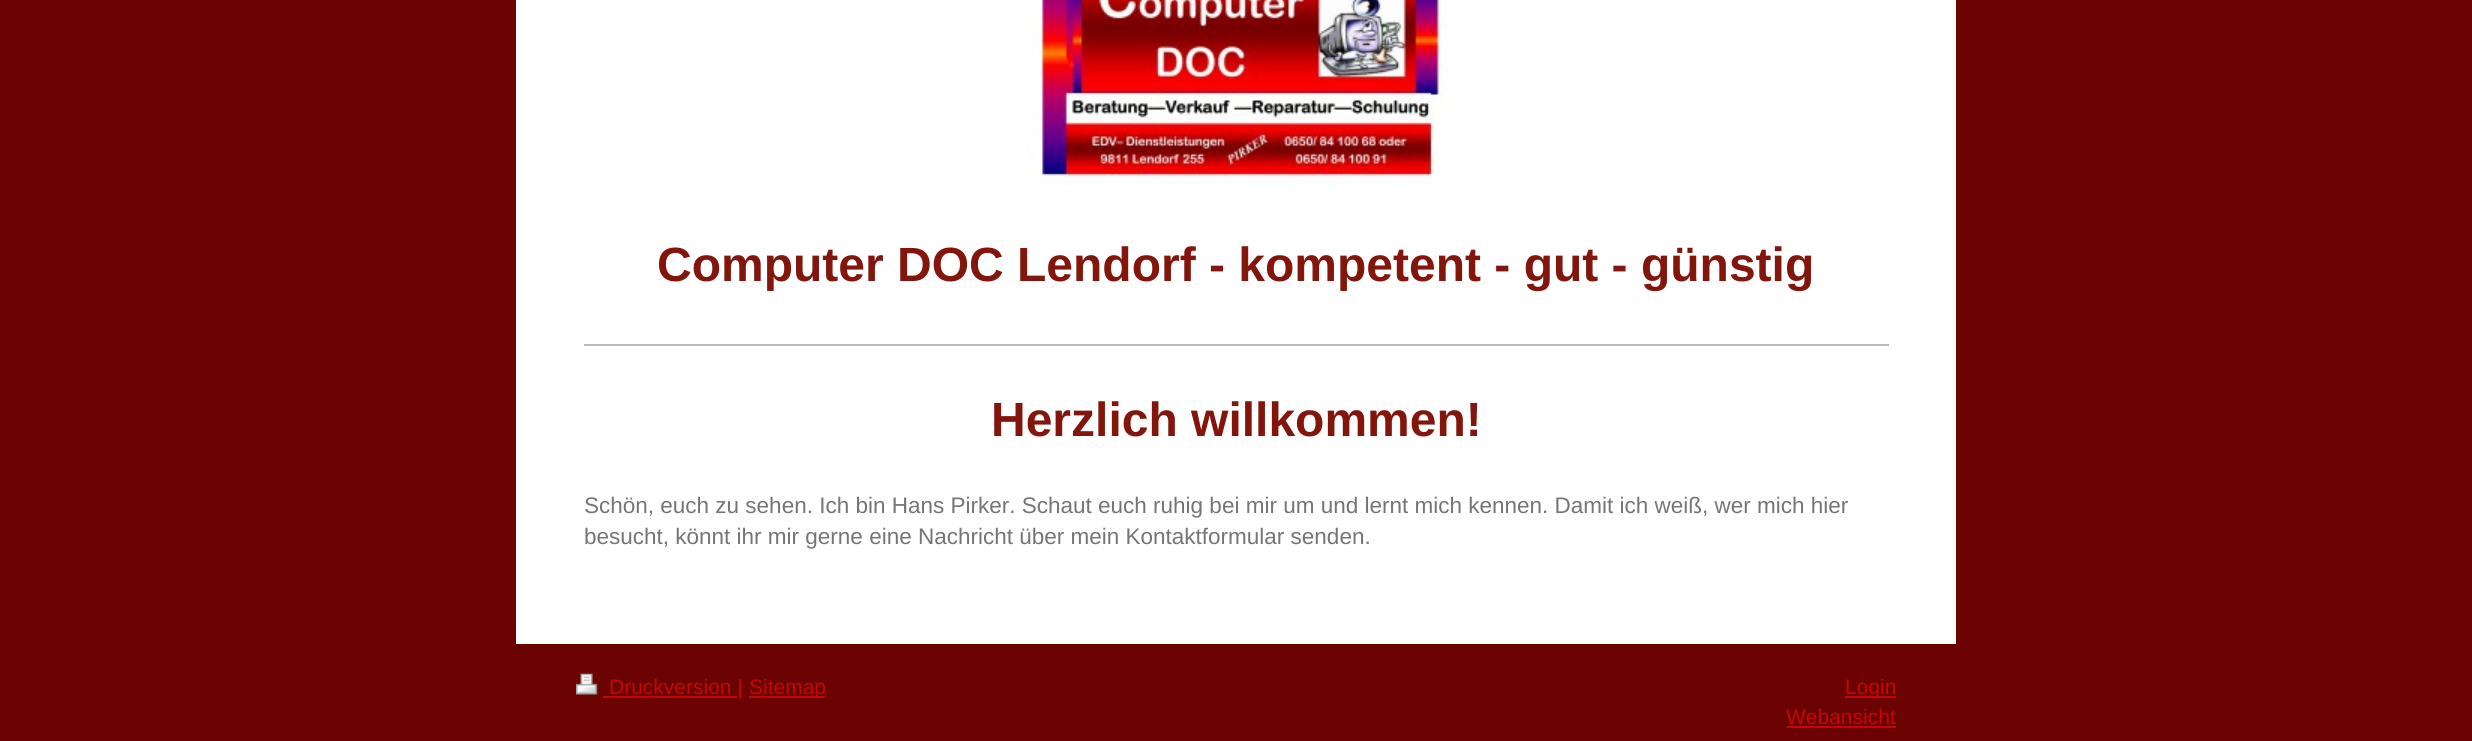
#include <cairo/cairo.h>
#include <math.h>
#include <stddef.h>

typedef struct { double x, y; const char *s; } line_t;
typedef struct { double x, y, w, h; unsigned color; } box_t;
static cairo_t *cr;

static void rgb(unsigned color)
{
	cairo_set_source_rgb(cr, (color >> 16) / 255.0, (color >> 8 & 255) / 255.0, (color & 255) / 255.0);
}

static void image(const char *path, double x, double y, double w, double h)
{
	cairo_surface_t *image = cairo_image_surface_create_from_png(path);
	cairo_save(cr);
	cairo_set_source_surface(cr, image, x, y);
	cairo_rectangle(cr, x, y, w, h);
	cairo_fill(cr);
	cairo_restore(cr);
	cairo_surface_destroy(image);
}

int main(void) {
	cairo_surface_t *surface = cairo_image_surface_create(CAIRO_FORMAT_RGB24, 2472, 741);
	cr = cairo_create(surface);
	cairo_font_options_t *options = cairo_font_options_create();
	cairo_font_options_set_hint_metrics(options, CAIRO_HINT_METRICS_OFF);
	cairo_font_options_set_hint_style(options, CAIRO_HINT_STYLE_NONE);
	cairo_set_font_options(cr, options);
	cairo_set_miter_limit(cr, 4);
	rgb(0x6b0303);
	cairo_paint(cr);
	rgb(0xffffff);
	cairo_rectangle(cr, 516, 0, 1440, 644);
	cairo_fill(cr);
	image("img/1.png", 1025, 0, 424, 186);
	rgb(0xbababa);
	cairo_rectangle(cr, 584, 344, 1305, 2);
	cairo_fill(cr);
	image("img/2.png", 576, 673, 22, 22);
	{
		static const box_t items[] = {
			{603, 696, 134, 2, 0xc40606},
			{749, 696, 76, 2, 0xc40606},
			{1845, 696, 51, 2, 0xc40606},
			{1787, 726, 109, 2, 0xc40606},
		};
		for (size_t i = 0; i < sizeof items / sizeof *items; i++) {
			rgb(items[i].color);
			cairo_rectangle(cr, items[i].x, items[i].y, items[i].w, items[i].h);
			cairo_fill(cr);
		}
	}
	cairo_select_font_face(cr, "Liberation Sans", CAIRO_FONT_SLANT_NORMAL, CAIRO_FONT_WEIGHT_BOLD);
	cairo_set_font_size(cr, 48);
	rgb(0x83160c);
	cairo_move_to(cr, 657, 281);
	cairo_show_text(cr, "Computer DOC Lendorf - kompetent - gut - günstig");
	cairo_move_to(cr, 991, 436);
	cairo_show_text(cr, "Herzlich willkommen!");
	cairo_select_font_face(cr, "Liberation Sans", CAIRO_FONT_SLANT_NORMAL, CAIRO_FONT_WEIGHT_NORMAL);
	cairo_set_font_size(cr, 22.5);
	rgb(0x757575);
	cairo_move_to(cr, 584, 513);
	cairo_show_text(cr, "Schön, euch zu sehen. Ich bin Hans Pirker. Schaut euch ruhig bei mir um und lernt mich kennen. Damit ich weiß, wer mich hier");
	cairo_move_to(cr, 584, 544);
	cairo_show_text(cr, "besucht, könnt ihr mir gerne eine Nachricht über mein Kontaktformular senden.");
	cairo_set_font_size(cr, 21);
	rgb(0xc40606);
	{
		static const line_t items[] = {
			{609, 694, "Druckversion |"},
			{749, 694, "Sitemap"},
			{1845, 694, "Login"},
			{1786, 724, "Webansicht"},
		};
		for (size_t i = 0; i < sizeof items / sizeof *items; i++) {
			cairo_move_to(cr, items[i].x, items[i].y);
			cairo_show_text(cr, items[i].s);
		}
	}
	cairo_surface_write_to_png(surface, "page.png");
	cairo_font_options_destroy(options);
	cairo_destroy(cr);
	cairo_surface_destroy(surface);
	return 0;
}
